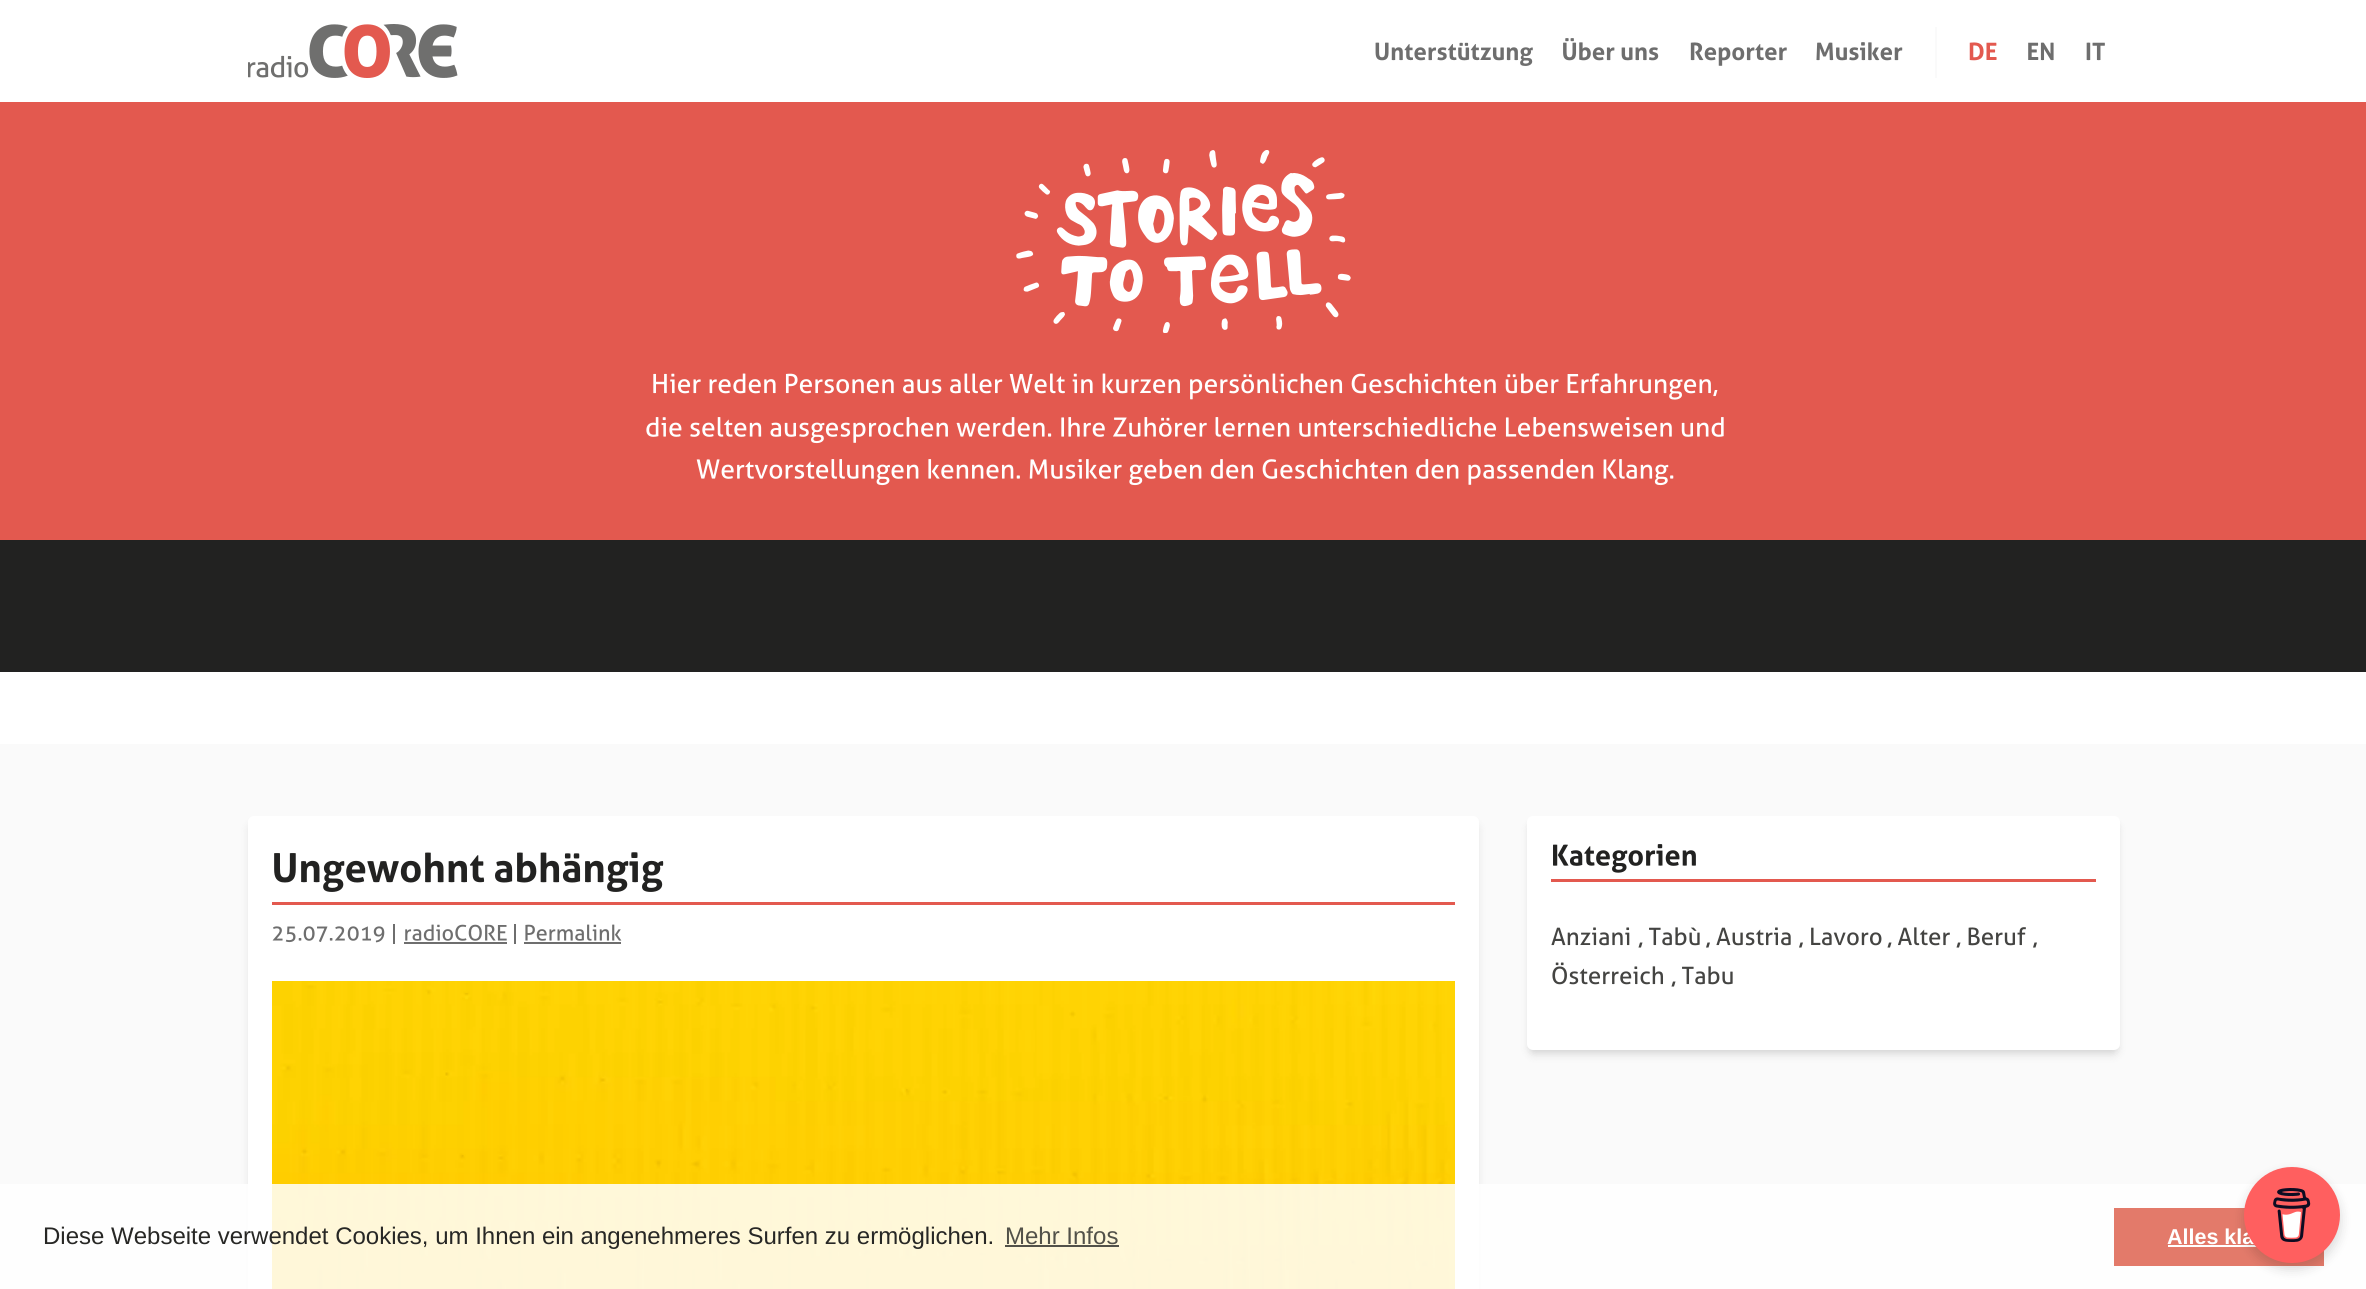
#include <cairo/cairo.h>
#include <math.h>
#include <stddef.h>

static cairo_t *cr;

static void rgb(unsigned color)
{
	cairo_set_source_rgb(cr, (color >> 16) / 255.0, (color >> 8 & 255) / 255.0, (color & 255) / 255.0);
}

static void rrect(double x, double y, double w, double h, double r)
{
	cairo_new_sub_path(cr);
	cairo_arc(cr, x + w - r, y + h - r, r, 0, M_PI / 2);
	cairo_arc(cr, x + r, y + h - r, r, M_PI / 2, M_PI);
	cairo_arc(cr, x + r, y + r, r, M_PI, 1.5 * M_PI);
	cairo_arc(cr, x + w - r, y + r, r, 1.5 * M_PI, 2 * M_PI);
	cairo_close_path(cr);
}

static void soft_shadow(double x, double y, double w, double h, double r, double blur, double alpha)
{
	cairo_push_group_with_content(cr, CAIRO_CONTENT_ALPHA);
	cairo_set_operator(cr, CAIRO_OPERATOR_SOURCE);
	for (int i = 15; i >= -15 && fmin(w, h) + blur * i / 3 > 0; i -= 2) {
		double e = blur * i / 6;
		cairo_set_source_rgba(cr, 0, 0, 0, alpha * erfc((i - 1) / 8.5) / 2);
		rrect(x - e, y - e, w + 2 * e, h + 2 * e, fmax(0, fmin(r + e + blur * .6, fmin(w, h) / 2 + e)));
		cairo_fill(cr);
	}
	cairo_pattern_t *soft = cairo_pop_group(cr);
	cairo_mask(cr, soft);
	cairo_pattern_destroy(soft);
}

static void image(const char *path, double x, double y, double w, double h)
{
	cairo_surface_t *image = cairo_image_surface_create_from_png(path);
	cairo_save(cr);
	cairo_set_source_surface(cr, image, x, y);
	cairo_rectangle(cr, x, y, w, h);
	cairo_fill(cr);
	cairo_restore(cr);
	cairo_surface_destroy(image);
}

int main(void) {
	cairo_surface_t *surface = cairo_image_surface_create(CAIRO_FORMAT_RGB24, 2366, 1289);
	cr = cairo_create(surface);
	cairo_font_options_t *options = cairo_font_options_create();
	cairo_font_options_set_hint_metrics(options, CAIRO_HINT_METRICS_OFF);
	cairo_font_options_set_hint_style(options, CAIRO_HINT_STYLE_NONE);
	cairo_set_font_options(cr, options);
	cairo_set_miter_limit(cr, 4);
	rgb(0xffffff);
	cairo_paint(cr);
	image("img/1.png", 248, 24, 210, 54);
	image("img/2.png", 1375, 42, 158, 24);
	image("img/3.png", 1563, 38, 96, 23);
	image("img/4.png", 1690, 42, 97, 24);
	image("img/5.png", 1816, 42, 87, 19);
	rgb(0xfafafa);
	cairo_rectangle(cr, 1935, 27, 2, 51);
	cairo_fill(cr);
	image("img/6.png", 1969, 42, 28, 19);
	image("img/7.png", 2028, 42, 26, 19);
	image("img/8.png", 2086, 42, 19, 19);
	rgb(0xe3594f);
	cairo_rectangle(cr, 0, 102, 2366, 438);
	cairo_fill(cr);
	image("img/9.png", 1016, 150, 335, 183);
	image("img/10.png", 653, 373, 1065, 27);
	image("img/11.png", 646, 417, 1078, 27);
	image("img/12.png", 696, 459, 978, 27);
	rgb(0x222221);
	cairo_rectangle(cr, 0, 540, 2366, 132);
	cairo_fill(cr);
	rgb(0xfafafa);
	cairo_rectangle(cr, 0, 744, 2366, 545);
	cairo_fill(cr);
	rgb(0x000000);
	soft_shadow(249, 824, 1229, 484, 5, 4.5, 0.1);
	rgb(0xffffff);
	rrect(248, 816, 1231, 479, 6);
	cairo_fill(cr);
	rgb(0xe3594f);
	cairo_rectangle(cr, 272, 902, 1183, 3);
	cairo_fill(cr);
	image("img/13.png", 274, 852, 390, 40);
	image("img/14.png", 272, 926, 113, 17);
	rgb(0x6e6e6e);
	cairo_rectangle(cr, 393, 924, 2, 20);
	cairo_fill(cr);
	image("img/15.png", 405, 924, 102, 17);
	cairo_rectangle(cr, 514, 924, 2, 20);
	cairo_fill(cr);
	image("img/16.png", 525, 924, 97, 17);
	cairo_rectangle(cr, 404, 942, 103, 2);
	cairo_fill(cr);
	cairo_rectangle(cr, 524, 942, 97, 2);
	cairo_fill(cr);
	image("img/17.png", 272, 981, 1183, 308);
	rgb(0x000000);
	soft_shadow(1529, 821, 589, 231, 5, 3, 0.06);
	soft_shadow(1529, 824, 589, 231, 5, 4.5, 0.1);
	rgb(0xffffff);
	rrect(1527, 816, 593, 234, 6);
	cairo_fill(cr);
	rgb(0xe3594f);
	cairo_rectangle(cr, 1551, 879, 545, 3);
	cairo_fill(cr);
	image("img/18.png", 1553, 844, 143, 29);
	image("img/19.png", 1551, 927, 79, 19);
	rgb(0x444442);
	cairo_new_path(cr);
	cairo_move_to(cr, 1640, 942.5);
	cairo_line_to(cr, 1642.5, 942.5);
	cairo_line_to(cr, 1641, 947.5);
	cairo_line_to(cr, 1638.5, 947.5);
	cairo_close_path(cr);
	cairo_fill(cr);
	image("img/20.png", 1649, 927, 51, 19);
	cairo_new_path(cr);
	cairo_move_to(cr, 1707.5, 942.5);
	cairo_line_to(cr, 1710, 942.5);
	cairo_line_to(cr, 1708.5, 947.5);
	cairo_line_to(cr, 1706, 947.5);
	cairo_close_path(cr);
	cairo_fill(cr);
	image("img/21.png", 1716, 927, 75, 19);
	cairo_new_path(cr);
	cairo_move_to(cr, 1800.5, 942.5);
	cairo_line_to(cr, 1803, 942.5);
	cairo_line_to(cr, 1801.5, 947.5);
	cairo_line_to(cr, 1799, 947.5);
	cairo_close_path(cr);
	cairo_fill(cr);
	image("img/22.png", 1811, 927, 71, 19);
	cairo_new_path(cr);
	cairo_move_to(cr, 1889, 942.5);
	cairo_line_to(cr, 1891.5, 942.5);
	cairo_line_to(cr, 1890, 947.5);
	cairo_line_to(cr, 1887.5, 947.5);
	cairo_close_path(cr);
	cairo_fill(cr);
	image("img/23.png", 1898, 927, 52, 19);
	cairo_new_path(cr);
	cairo_move_to(cr, 1958, 942.5);
	cairo_line_to(cr, 1960.5, 942.5);
	cairo_line_to(cr, 1959, 947.5);
	cairo_line_to(cr, 1956.5, 947.5);
	cairo_close_path(cr);
	cairo_fill(cr);
	image("img/24.png", 1968, 927, 58, 19);
	cairo_new_path(cr);
	cairo_move_to(cr, 2034.5, 942.5);
	cairo_line_to(cr, 2037, 942.5);
	cairo_line_to(cr, 2035.5, 947.5);
	cairo_line_to(cr, 2033, 947.5);
	cairo_close_path(cr);
	cairo_fill(cr);
	image("img/25.png", 1552, 962, 111, 23);
	cairo_new_path(cr);
	cairo_move_to(cr, 1673, 981.5);
	cairo_line_to(cr, 1675.5, 981.5);
	cairo_line_to(cr, 1674, 986.5);
	cairo_line_to(cr, 1671.5, 986.5);
	cairo_close_path(cr);
	cairo_fill(cr);
	image("img/26.png", 1682, 966, 51, 19);
	cairo_set_source_rgba(cr, 1, 1, 1, 0.85);
	cairo_rectangle(cr, 0, 1184, 2366, 105);
	cairo_fill(cr);
	rgb(0x525149);
	cairo_rectangle(cr, 1005, 1245, 114, 2);
	cairo_fill(cr);
	rgb(0xe37a6a);
	cairo_rectangle(cr, 2114, 1208, 210, 58);
	cairo_fill(cr);
	rgb(0xffffff);
	cairo_rectangle(cr, 2168, 1245, 89, 2);
	cairo_fill(cr);
	rgb(0x000000);
	soft_shadow(2244, 1173, 96, 96, 48, 6, 0.15);
	cairo_select_font_face(cr, "Liberation Sans", CAIRO_FONT_SLANT_NORMAL, CAIRO_FONT_WEIGHT_NORMAL);
	cairo_set_font_size(cr, 24);
	rgb(0x272725);
	cairo_move_to(cr, 43, 1244);
	cairo_show_text(cr, "Diese Webseite verwendet Cookies, um Ihnen ein angenehmeres Surfen zu ermöglichen.");
	rgb(0x525149);
	cairo_move_to(cr, 1005, 1244);
	cairo_show_text(cr, "Mehr Infos");
	cairo_select_font_face(cr, "Liberation Sans", CAIRO_FONT_SLANT_NORMAL, CAIRO_FONT_WEIGHT_BOLD);
	cairo_set_font_size(cr, 21.5);
	rgb(0xffffff);
	cairo_move_to(cr, 2167, 1244);
	cairo_show_text(cr, "Alles kla");
	rgb(0xff5f5f);
	cairo_new_path(cr);
	cairo_arc(cr, 2292, 1215, 48, 0, 2 * M_PI);
	cairo_fill(cr);
	image("img/27.png", 2273, 1188, 38, 54);
	cairo_surface_write_to_png(surface, "page.png");
	cairo_font_options_destroy(options);
	cairo_destroy(cr);
	cairo_surface_destroy(surface);
	return 0;
}
